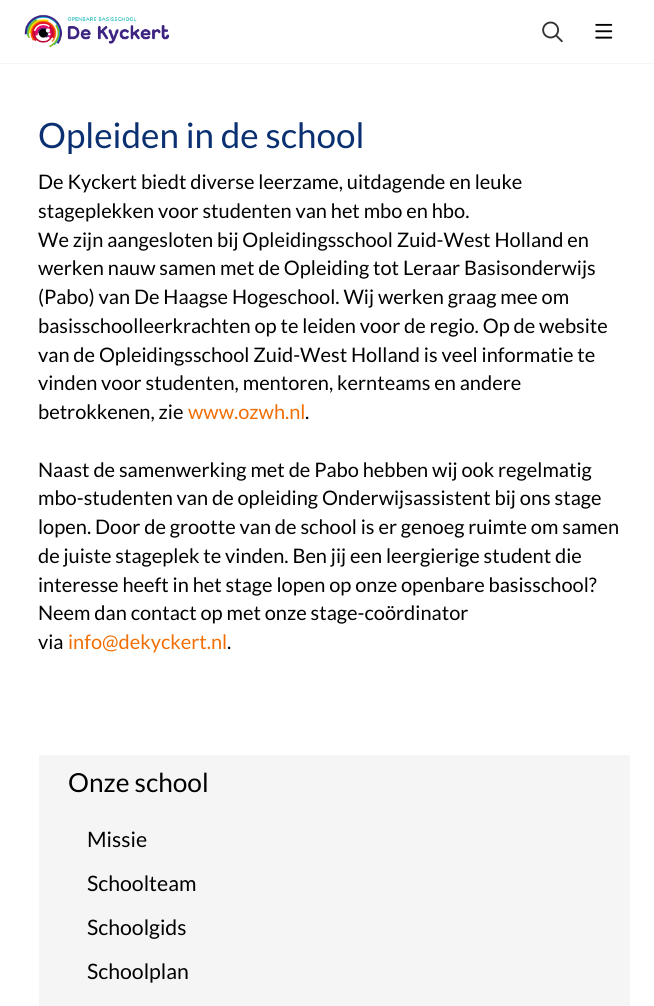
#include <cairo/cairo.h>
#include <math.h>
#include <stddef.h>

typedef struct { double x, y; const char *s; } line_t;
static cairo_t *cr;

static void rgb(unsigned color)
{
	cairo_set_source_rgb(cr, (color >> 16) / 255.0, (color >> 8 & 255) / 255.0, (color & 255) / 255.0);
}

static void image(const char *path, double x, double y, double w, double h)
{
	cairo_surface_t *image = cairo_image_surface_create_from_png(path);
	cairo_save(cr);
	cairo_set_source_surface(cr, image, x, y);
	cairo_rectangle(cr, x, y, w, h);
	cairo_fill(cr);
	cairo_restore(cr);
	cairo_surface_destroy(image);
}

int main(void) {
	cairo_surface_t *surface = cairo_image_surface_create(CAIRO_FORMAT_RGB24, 654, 1006);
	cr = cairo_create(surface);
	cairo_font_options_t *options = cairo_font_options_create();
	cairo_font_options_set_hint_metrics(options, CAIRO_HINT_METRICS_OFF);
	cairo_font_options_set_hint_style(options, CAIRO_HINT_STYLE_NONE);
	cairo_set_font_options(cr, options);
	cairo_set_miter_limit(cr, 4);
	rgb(0xffffff);
	cairo_paint(cr);
	rgb(0xf5f5f5);
	cairo_rectangle(cr, 0, 63, 654, 1);
	cairo_fill(cr);
	image("img/1.png", 24, 14, 146, 34);
	image("img/2.png", 542, 21, 21, 22);
	image("img/3.png", 595, 23, 18, 16);
	cairo_rectangle(cr, 39, 755, 591, 251);
	cairo_fill(cr);
	cairo_select_font_face(cr, "Lato", CAIRO_FONT_SLANT_NORMAL, CAIRO_FONT_WEIGHT_NORMAL);
	cairo_set_font_size(cr, 35);
	rgb(0x0a3071);
	cairo_move_to(cr, 38, 148);
	cairo_show_text(cr, "Opleiden in de school");
	cairo_set_font_size(cr, 20);
	rgb(0x000000);
	{
		static const line_t items[] = {
			{38, 189, "De Kyckert biedt diverse leerzame, uitdagende en leuke"},
			{38, 218, "stageplekken voor studenten van het mbo en hbo."},
			{38, 247, "We zijn aangesloten bij Opleidingsschool Zuid-West Holland en"},
			{38, 275, "werken nauw samen met de Opleiding tot Leraar Basisonderwijs"},
			{38, 304, "(Pabo) van De Haagse Hogeschool. Wij werken graag mee om"},
			{38, 333, "basisschoolleerkrachten op te leiden voor de regio. Op de website"},
			{38, 362, "van de Opleidingsschool Zuid-West Holland is veel informatie te"},
			{38, 390, "vinden voor studenten, mentoren, kernteams en andere"},
			{38, 419, "betrokkenen, zie"},
		};
		for (size_t i = 0; i < sizeof items / sizeof *items; i++) {
			cairo_move_to(cr, items[i].x, items[i].y);
			cairo_show_text(cr, items[i].s);
		}
	}
	rgb(0xf06e04);
	cairo_move_to(cr, 188, 419);
	cairo_show_text(cr, "www.ozwh.nl");
	rgb(0x000000);
	{
		static const line_t items[] = {
			{305, 419, "."},
			{38, 477, "Naast de samenwerking met de Pabo hebben wij ook regelmatig"},
			{38, 505, "mbo-studenten van de opleiding Onderwijsassistent bij ons stage"},
			{38, 534, "lopen. Door de grootte van de school is er genoeg ruimte om samen"},
			{38, 563, "de juiste stageplek te vinden. Ben jij een leergierige student die"},
			{38, 592, "interesse heeft in het stage lopen op onze openbare basisschool?"},
			{38, 620, "Neem dan contact op met onze stage-coördinator"},
			{38, 649, "via"},
		};
		for (size_t i = 0; i < sizeof items / sizeof *items; i++) {
			cairo_move_to(cr, items[i].x, items[i].y);
			cairo_show_text(cr, items[i].s);
		}
	}
	rgb(0xf06e04);
	cairo_move_to(cr, 68, 649);
	cairo_show_text(cr, "info@dekyckert.nl");
	rgb(0x000000);
	cairo_move_to(cr, 227, 649);
	cairo_show_text(cr, ".");
	cairo_set_font_size(cr, 26.25);
	cairo_move_to(cr, 68, 792);
	cairo_show_text(cr, "Onze school");
	cairo_set_font_size(cr, 21.25);
	{
		static const line_t items[] = {
			{87, 847, "Missie"},
			{87, 891, "Schoolteam"},
			{87, 935, "Schoolgids"},
			{87, 979, "Schoolplan"},
		};
		for (size_t i = 0; i < sizeof items / sizeof *items; i++) {
			cairo_move_to(cr, items[i].x, items[i].y);
			cairo_show_text(cr, items[i].s);
		}
	}
	cairo_surface_write_to_png(surface, "page.png");
	cairo_font_options_destroy(options);
	cairo_destroy(cr);
	cairo_surface_destroy(surface);
	return 0;
}
